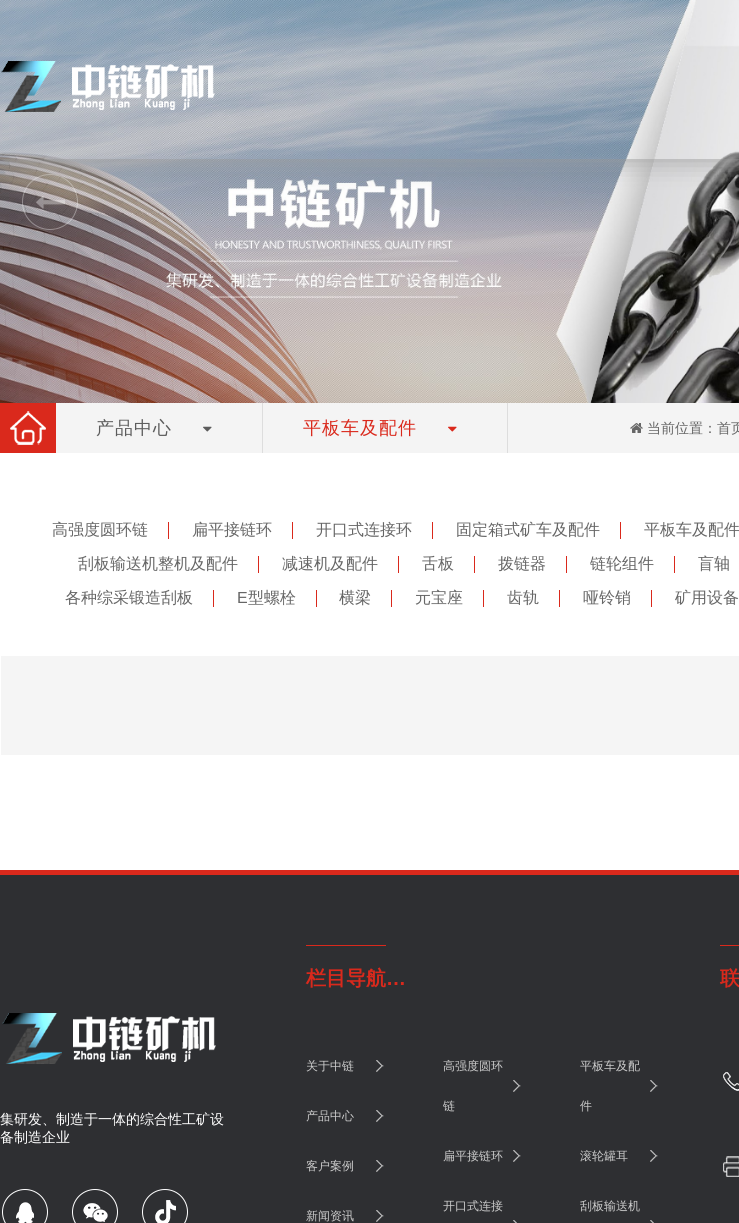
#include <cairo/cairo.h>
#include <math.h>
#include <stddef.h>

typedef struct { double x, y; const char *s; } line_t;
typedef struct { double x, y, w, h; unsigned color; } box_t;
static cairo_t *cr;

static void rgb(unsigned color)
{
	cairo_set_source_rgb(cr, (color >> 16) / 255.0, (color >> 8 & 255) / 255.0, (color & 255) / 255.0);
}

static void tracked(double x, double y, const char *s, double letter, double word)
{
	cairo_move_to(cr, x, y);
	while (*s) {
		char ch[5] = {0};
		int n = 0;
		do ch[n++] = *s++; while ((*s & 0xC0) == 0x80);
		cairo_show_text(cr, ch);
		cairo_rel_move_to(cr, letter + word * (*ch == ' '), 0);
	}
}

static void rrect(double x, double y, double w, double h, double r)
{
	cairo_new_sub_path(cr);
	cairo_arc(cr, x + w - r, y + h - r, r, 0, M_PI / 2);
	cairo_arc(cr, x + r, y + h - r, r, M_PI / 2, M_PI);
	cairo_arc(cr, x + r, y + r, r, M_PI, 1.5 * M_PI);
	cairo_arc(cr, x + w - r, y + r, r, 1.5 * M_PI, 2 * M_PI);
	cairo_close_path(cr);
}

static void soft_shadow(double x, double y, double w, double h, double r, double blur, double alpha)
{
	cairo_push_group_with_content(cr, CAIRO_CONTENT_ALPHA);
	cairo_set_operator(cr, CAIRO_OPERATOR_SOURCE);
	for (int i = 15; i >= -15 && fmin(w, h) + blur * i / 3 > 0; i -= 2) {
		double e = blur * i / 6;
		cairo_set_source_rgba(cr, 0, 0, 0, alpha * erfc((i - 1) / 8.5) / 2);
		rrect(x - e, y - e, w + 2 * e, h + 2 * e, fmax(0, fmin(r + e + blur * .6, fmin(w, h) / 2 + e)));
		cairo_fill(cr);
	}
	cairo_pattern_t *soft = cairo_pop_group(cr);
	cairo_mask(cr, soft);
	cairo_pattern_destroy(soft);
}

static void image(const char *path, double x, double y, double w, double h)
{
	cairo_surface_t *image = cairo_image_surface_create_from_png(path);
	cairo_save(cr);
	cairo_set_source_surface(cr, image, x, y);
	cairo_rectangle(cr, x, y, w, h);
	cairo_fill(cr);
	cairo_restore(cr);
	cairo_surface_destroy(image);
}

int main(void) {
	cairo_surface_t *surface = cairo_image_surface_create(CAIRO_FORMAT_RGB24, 739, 1223);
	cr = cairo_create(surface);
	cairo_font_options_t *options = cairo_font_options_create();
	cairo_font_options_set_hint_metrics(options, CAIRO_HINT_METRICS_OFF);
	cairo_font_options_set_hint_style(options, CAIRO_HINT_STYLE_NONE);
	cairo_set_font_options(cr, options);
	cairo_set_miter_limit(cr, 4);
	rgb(0xffffff);
	cairo_paint(cr);
	image("img/1.png", 0, 0, 739, 403);
	cairo_arc(cr, 50, 202, 27.5, 0, 2 * M_PI);
	cairo_set_source_rgba(cr, 1, 1, 1, 0.35);
	cairo_set_line_width(cr, 1);
	cairo_stroke(cr);
	image("img/2.png", 36, 196, 29, 13);
	cairo_save(cr);
	cairo_rectangle(cr, 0, 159, 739, 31);
	cairo_clip(cr);
	rgb(0xa2a2a2);
	soft_shadow(1, 1, 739, 159, 0, 14.5, 1);
	cairo_restore(cr);
	cairo_set_source_rgba(cr, 1, 1, 1, 0.1);
	cairo_rectangle(cr, 0, 0, 739, 159);
	cairo_fill(cr);
	image("img/3.png", 1, 61, 214, 51);
	rgb(0xf4f4f4);
	cairo_rectangle(cr, 56, 403, 683, 50);
	cairo_fill(cr);
	rgb(0xda291c);
	cairo_rectangle(cr, 0, 403, 56, 50);
	cairo_fill(cr);
	image("img/4.png", 10, 411, 36, 34);
	rgb(0xdddddd);
	cairo_rectangle(cr, 262, 403, 1, 50);
	cairo_fill(cr);
	image("img/5.png", 203, 426, 9, 6);
	cairo_rectangle(cr, 507, 403, 1, 50);
	cairo_fill(cr);
	image("img/6.png", 448, 426, 9, 6);
	image("img/7.png", 630, 423, 13, 10);
	{
		static const box_t items[] = {
			{168, 522, 1, 17, 0xda291c},
			{292, 522, 1, 17, 0xda291c},
			{432, 522, 1, 17, 0xda291c},
			{620, 522, 1, 17, 0xda291c},
			{258, 556, 1, 17, 0xda291c},
			{398, 556, 1, 17, 0xda291c},
			{474, 556, 1, 17, 0xda291c},
			{566, 556, 1, 17, 0xda291c},
			{674, 556, 1, 17, 0xda291c},
			{213, 590, 1, 17, 0xda291c},
			{316, 590, 1, 17, 0xda291c},
			{391, 590, 1, 17, 0xda291c},
			{483, 590, 1, 17, 0xda291c},
			{559, 590, 1, 17, 0xda291c},
			{651, 590, 1, 17, 0xda291c},
			{1, 656, 738, 99, 0xf5f5f5},
			{0, 875, 739, 348, 0x2e2f32},
			{0, 870, 739, 5, 0xda291c},
			{306, 945, 80, 1, 0xda291c},
		};
		for (size_t i = 0; i < sizeof items / sizeof *items; i++) {
			rgb(items[i].color);
			cairo_rectangle(cr, items[i].x, items[i].y, items[i].w, items[i].h);
			cairo_fill(cr);
		}
	}
	image("img/8.png", 376, 1060, 8, 12);
	image("img/8.png", 376, 1110, 8, 12);
	image("img/8.png", 376, 1160, 8, 12);
	image("img/8.png", 376, 1210, 8, 12);
	image("img/8.png", 513, 1080, 8, 12);
	image("img/8.png", 513, 1150, 8, 12);
	image("img/9.png", 513, 1220, 4, 3);
	image("img/8.png", 650, 1080, 8, 12);
	image("img/8.png", 650, 1150, 8, 12);
	image("img/9.png", 650, 1220, 4, 3);
	cairo_rectangle(cr, 720, 945, 19, 1);
	cairo_fill(cr);
	image("img/10.png", 723, 1072, 16, 19);
	image("img/11.png", 723, 1156, 16, 21);
	image("img/12.png", 2, 1013, 214, 51);
	image("img/13.png", 2, 1189, 46, 34);
	image("img/14.png", 72, 1189, 46, 34);
	image("img/15.png", 142, 1189, 46, 34);
	cairo_select_font_face(cr, "WenQuanYi Zen Hei Medium", CAIRO_FONT_SLANT_NORMAL, CAIRO_FONT_WEIGHT_NORMAL);
	cairo_set_font_size(cr, 18);
	rgb(0x5c5c5c);
	tracked(96, 434, "产品中心", 1, 0);
	rgb(0xda291c);
	tracked(303, 434, "平板车及配件", 1, 0);
	cairo_set_font_size(cr, 14);
	rgb(0x666666);
	cairo_move_to(cr, 647, 433);
	cairo_show_text(cr, "当前位置：首页");
	cairo_set_font_size(cr, 16);
	{
		static const line_t items[] = {
			{52, 535, "高强度圆环链"},
			{192, 535, "扁平接链环"},
			{316, 535, "开口式连接环"},
			{456, 535, "固定箱式矿车及配件"},
			{644, 535, "平板车及配件"},
			{78, 569, "刮板输送机整机及配件"},
			{282, 569, "减速机及配件"},
			{422, 569, "舌板"},
			{498, 569, "拨链器"},
			{590, 569, "链轮组件"},
			{698, 569, "盲轴"},
			{65, 603, "各种综采锻造刮板"},
		};
		for (size_t i = 0; i < sizeof items / sizeof *items; i++) {
			cairo_move_to(cr, items[i].x, items[i].y);
			cairo_show_text(cr, items[i].s);
		}
	}
	cairo_select_font_face(cr, "Liberation Sans", CAIRO_FONT_SLANT_NORMAL, CAIRO_FONT_WEIGHT_NORMAL);
	cairo_move_to(cr, 237, 603);
	cairo_show_text(cr, "E");
	cairo_select_font_face(cr, "WenQuanYi Zen Hei Medium", CAIRO_FONT_SLANT_NORMAL, CAIRO_FONT_WEIGHT_NORMAL);
	{
		static const line_t items[] = {
			{248, 603, "型螺栓"},
			{339, 603, "横梁"},
			{415, 603, "元宝座"},
			{507, 603, "齿轨"},
			{583, 603, "哑铃销"},
			{675, 603, "矿用设备"},
		};
		for (size_t i = 0; i < sizeof items / sizeof *items; i++) {
			cairo_move_to(cr, items[i].x, items[i].y);
			cairo_show_text(cr, items[i].s);
		}
	}
	cairo_select_font_face(cr, "WenQuanYi Zen Hei", CAIRO_FONT_SLANT_NORMAL, CAIRO_FONT_WEIGHT_BOLD);
	cairo_set_font_size(cr, 20);
	rgb(0xda291c);
	cairo_move_to(cr, 306, 985);
	cairo_show_text(cr, "栏目导航");
	cairo_select_font_face(cr, "Liberation Sans", CAIRO_FONT_SLANT_NORMAL, CAIRO_FONT_WEIGHT_BOLD);
	cairo_move_to(cr, 386, 985);
	cairo_show_text(cr, "…");
	cairo_select_font_face(cr, "WenQuanYi Zen Hei Medium", CAIRO_FONT_SLANT_NORMAL, CAIRO_FONT_WEIGHT_NORMAL);
	cairo_set_font_size(cr, 12);
	rgb(0xcccccc);
	{
		static const line_t items[] = {
			{306, 1070, "关于中链"},
			{306, 1120, "产品中心"},
			{306, 1170, "客户案例"},
			{306, 1220, "新闻资讯"},
			{443, 1070, "高强度圆环"},
			{443, 1110, "链"},
			{443, 1160, "扁平接链环"},
			{443, 1210, "开口式连接"},
			{580, 1070, "平板车及配"},
			{580, 1110, "件"},
			{580, 1160, "滚轮罐耳"},
			{580, 1210, "刮板输送机"},
		};
		for (size_t i = 0; i < sizeof items / sizeof *items; i++) {
			cairo_move_to(cr, items[i].x, items[i].y);
			cairo_show_text(cr, items[i].s);
		}
	}
	cairo_select_font_face(cr, "WenQuanYi Zen Hei", CAIRO_FONT_SLANT_NORMAL, CAIRO_FONT_WEIGHT_BOLD);
	cairo_set_font_size(cr, 20);
	rgb(0xda291c);
	cairo_move_to(cr, 720, 985);
	cairo_show_text(cr, "联");
	cairo_select_font_face(cr, "WenQuanYi Zen Hei Medium", CAIRO_FONT_SLANT_NORMAL, CAIRO_FONT_WEIGHT_NORMAL);
	cairo_set_font_size(cr, 14);
	rgb(0xffffff);
	cairo_move_to(cr, 0, 1124);
	cairo_show_text(cr, "集研发、制造于一体的综合性工矿设");
	cairo_move_to(cr, 0, 1142);
	cairo_show_text(cr, "备制造企业");
	cairo_surface_write_to_png(surface, "page.png");
	cairo_font_options_destroy(options);
	cairo_destroy(cr);
	cairo_surface_destroy(surface);
	return 0;
}
